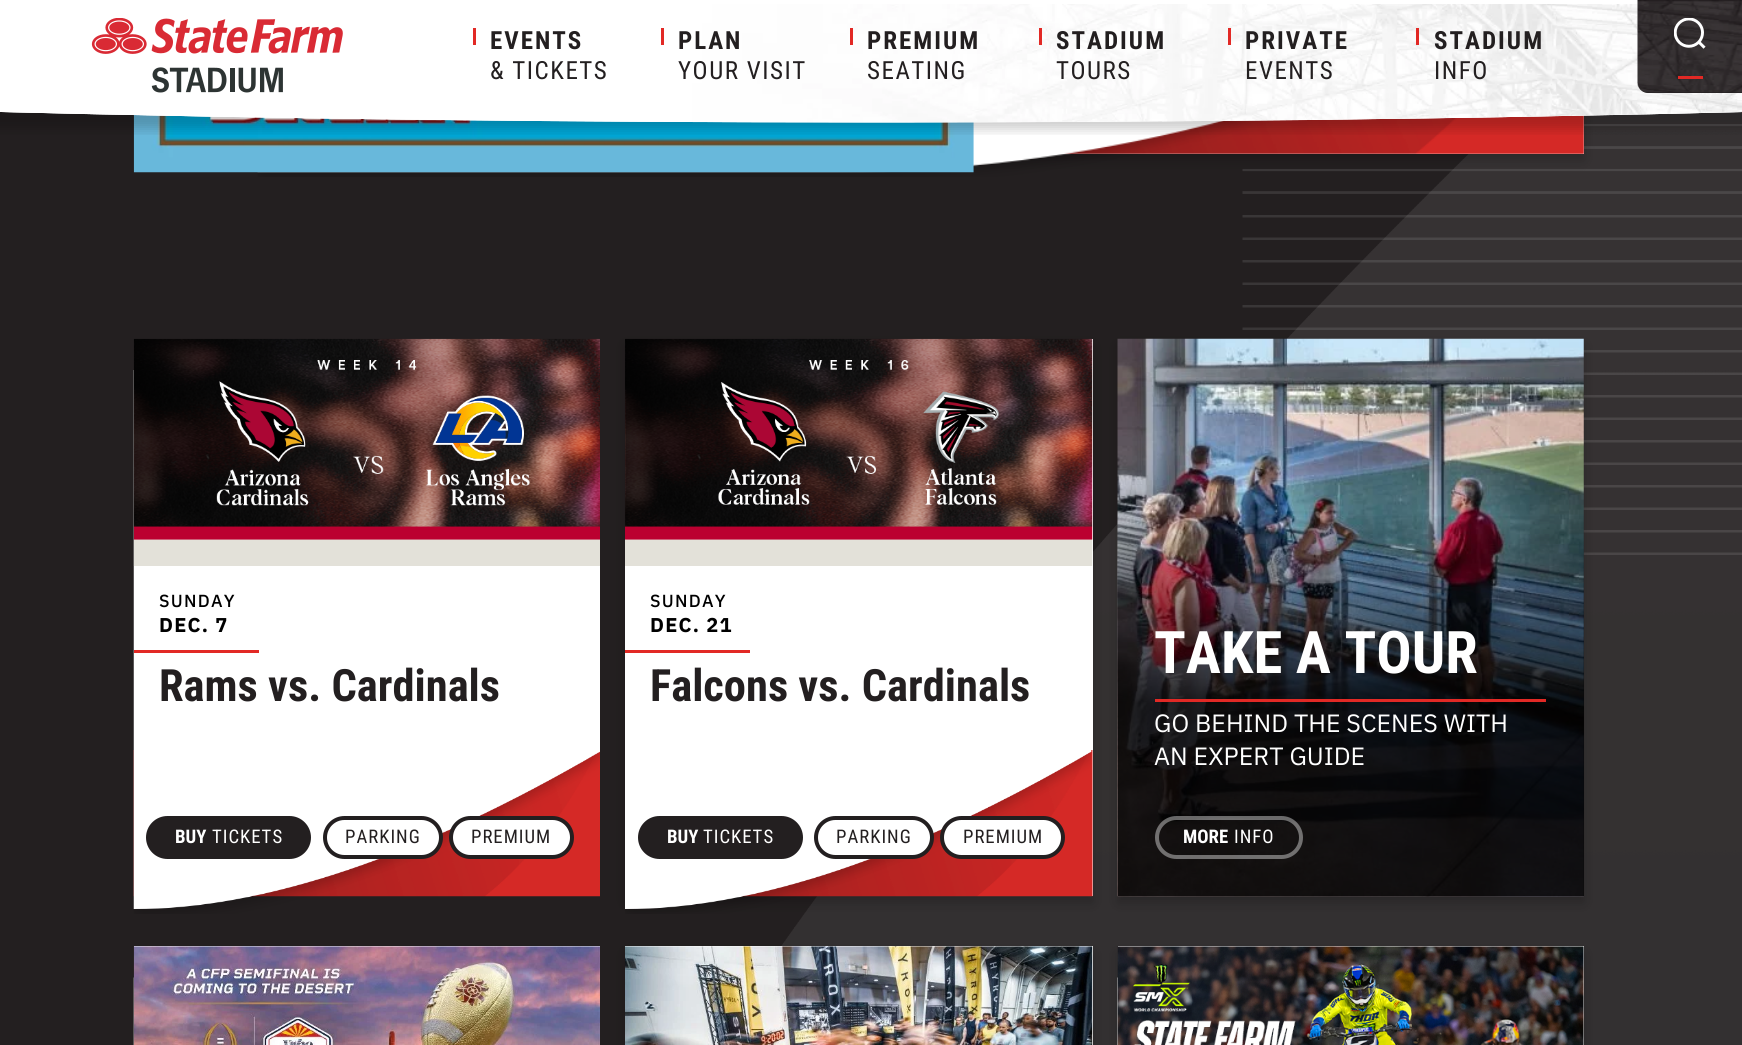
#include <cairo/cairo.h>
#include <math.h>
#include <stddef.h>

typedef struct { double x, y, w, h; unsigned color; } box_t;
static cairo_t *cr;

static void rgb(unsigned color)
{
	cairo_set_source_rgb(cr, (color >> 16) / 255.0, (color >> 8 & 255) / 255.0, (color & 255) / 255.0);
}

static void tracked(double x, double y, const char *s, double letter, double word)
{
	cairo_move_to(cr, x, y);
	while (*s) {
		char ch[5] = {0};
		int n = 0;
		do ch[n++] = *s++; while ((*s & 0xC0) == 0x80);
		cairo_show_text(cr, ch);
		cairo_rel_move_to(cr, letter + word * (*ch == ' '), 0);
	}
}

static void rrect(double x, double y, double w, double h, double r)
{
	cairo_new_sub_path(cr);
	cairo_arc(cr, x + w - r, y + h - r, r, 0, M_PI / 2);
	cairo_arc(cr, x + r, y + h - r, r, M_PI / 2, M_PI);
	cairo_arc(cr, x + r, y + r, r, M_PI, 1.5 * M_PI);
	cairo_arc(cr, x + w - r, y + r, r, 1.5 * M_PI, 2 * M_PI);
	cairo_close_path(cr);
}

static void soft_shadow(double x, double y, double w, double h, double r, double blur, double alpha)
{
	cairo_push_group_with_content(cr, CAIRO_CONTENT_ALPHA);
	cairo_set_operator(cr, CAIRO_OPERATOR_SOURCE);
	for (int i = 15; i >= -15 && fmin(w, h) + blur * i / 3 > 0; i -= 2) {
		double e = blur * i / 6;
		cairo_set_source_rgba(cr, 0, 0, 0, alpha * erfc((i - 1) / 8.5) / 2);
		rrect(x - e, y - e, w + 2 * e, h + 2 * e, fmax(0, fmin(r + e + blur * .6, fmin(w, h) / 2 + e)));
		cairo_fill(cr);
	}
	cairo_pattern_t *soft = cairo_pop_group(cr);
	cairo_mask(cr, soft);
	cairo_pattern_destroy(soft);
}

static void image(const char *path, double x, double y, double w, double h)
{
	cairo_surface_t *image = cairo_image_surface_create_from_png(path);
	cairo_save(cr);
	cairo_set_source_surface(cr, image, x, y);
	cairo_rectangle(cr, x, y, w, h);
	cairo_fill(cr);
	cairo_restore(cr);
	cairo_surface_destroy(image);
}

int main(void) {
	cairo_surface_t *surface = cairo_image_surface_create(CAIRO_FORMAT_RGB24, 1742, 1045);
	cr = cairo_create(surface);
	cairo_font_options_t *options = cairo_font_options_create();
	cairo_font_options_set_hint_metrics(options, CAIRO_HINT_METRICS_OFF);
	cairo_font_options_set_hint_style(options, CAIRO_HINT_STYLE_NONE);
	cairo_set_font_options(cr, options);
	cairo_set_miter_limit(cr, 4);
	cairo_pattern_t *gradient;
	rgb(0x231f20);
	cairo_paint(cr);
	image("img/1.png", 781, 112, 961, 933);
	image("img/6.png", 1242, 124, 500, 431);
	rgb(0x000000);
	soft_shadow(258, -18, 1326, 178, 0, 6, 0.2);
	rgb(0xffffff);
	cairo_rectangle(cr, 1064, 115, 520, 39);
	cairo_fill(cr);
	image("img/7.png", 1064, 115, 520, 39);
	image("img/9.png", 257, 120, 1016, 57);
	image("img/8.png", 133, 115, 841, 58);
	cairo_save(cr);
	cairo_rectangle(cr, 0, 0, 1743, 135);
	cairo_clip(cr);
	rgb(0x000000);
	soft_shadow(-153, -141, 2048, 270, 135, 6, 0.2);
	cairo_restore(cr);
	cairo_new_path(cr);
	cairo_move_to(cr, 871.5, -147.5);
	cairo_curve_to(cr, 2113, -147.5, 3119.5, -87, 3119.5, -12.5);
	cairo_curve_to(cr, 3119.5, 62, 2113, 122.5, 871.5, 122.5);
	cairo_curve_to(cr, -370, 122.5, -1376.5, 62, -1376.5, -12.5);
	cairo_curve_to(cr, -1376.5, -87, -370, -147.5, 871.5, -147.5);
	cairo_close_path(cr);
	cairo_fill(cr);
	cairo_new_path(cr);
	cairo_move_to(cr, 0, 4);
	cairo_line_to(cr, 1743, 4);
	cairo_line_to(cr, 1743, 112);
	cairo_curve_to(cr, 1475, 119, 1181, 122, 872, 122);
	cairo_curve_to(cr, 563, 122, 268, 119, 0, 112);
	cairo_close_path(cr);
	cairo_fill(cr);
	image("img/2.png", 2, 4, 1740, 119);
	image("img/3.png", 91, 18, 252, 75);
	{
		static const box_t items[] = {
			{473, 28, 3, 17, 0xe22925},
			{661, 28, 3, 17, 0xe22925},
			{850, 28, 3, 17, 0xe22925},
			{1039, 28, 3, 17, 0xe22925},
			{1228, 28, 3, 17, 0xe22925},
			{1416, 28, 3, 17, 0xe22925},
		};
		for (size_t i = 0; i < sizeof items / sizeof *items; i++) {
			rgb(items[i].color);
			cairo_rectangle(cr, items[i].x, items[i].y, items[i].w, items[i].h);
			cairo_fill(cr);
		}
	}
	rgb(0x231f20);
	cairo_new_path(cr);
	cairo_move_to(cr, 1638, 0);
	cairo_line_to(cr, 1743, 0);
	cairo_line_to(cr, 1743, 93);
	cairo_line_to(cr, 1648, 93);
	cairo_curve_to(cr, 1642.5, 93, 1638, 88.5, 1638, 83);
	cairo_close_path(cr);
	cairo_fill(cr);
	image("img/4.png", 1637, 0, 105, 93);
	image("img/5.png", 1674, 18, 32, 31);
	rgb(0xe22925);
	cairo_rectangle(cr, 1678, 76, 25, 3);
	cairo_fill(cr);
	image("img/10.png", 133, 750, 467, 147);
	image("img/12.png", 133, 370, 467, 544);
	image("img/11.png", 133, 338, 467, 228);
	cairo_rectangle(cr, 134, 650, 125, 3);
	cairo_fill(cr);
	rgb(0x231f20);
	rrect(148, 818, 161, 39, 19.5);
	cairo_fill_preserve(cr);
	cairo_set_line_width(cr, 4);
	cairo_stroke(cr);
	rgb(0xffffff);
	rrect(325, 818, 116, 39, 19.5);
	cairo_fill_preserve(cr);
	rgb(0x231f20);
	cairo_stroke(cr);
	rgb(0xffffff);
	rrect(451, 818, 121, 39, 19.5);
	cairo_fill_preserve(cr);
	rgb(0x231f20);
	cairo_stroke(cr);
	rgb(0x000000);
	soft_shadow(625, 345, 468, 558, 0, 6, 0.2);
	rgb(0xffffff);
	cairo_rectangle(cr, 625, 339, 468, 557);
	cairo_fill(cr);
	image("img/13.png", 740, 750, 353, 147);
	image("img/14.png", 625, 338, 468, 228);
	rgb(0xe22925);
	cairo_rectangle(cr, 625, 650, 125, 3);
	cairo_fill(cr);
	image("img/15.png", 625, 750, 467, 164);
	rgb(0x231f20);
	rrect(640, 818, 161, 39, 19.5);
	cairo_fill_preserve(cr);
	cairo_stroke(cr);
	rgb(0xffffff);
	rrect(816, 818, 116, 39, 19.5);
	cairo_fill_preserve(cr);
	rgb(0x231f20);
	cairo_stroke(cr);
	rgb(0xffffff);
	rrect(942, 818, 121, 39, 19.5);
	cairo_fill_preserve(cr);
	rgb(0x231f20);
	cairo_stroke(cr);
	rgb(0x000000);
	soft_shadow(1118, 345, 466, 558, 0, 6, 0.2);
	image("img/16.png", 1117, 338, 467, 559);
	gradient = cairo_pattern_create_linear(1351, 896, 1351, 511);
	cairo_pattern_add_color_stop_rgba(gradient, 0.5, 0, 0, 0, 0.85);
	cairo_pattern_add_color_stop_rgba(gradient, 1, 0, 0, 0, 0);
	cairo_set_source(cr, gradient);
	cairo_pattern_destroy(gradient);
	cairo_rectangle(cr, 1118, 516, 466, 380);
	cairo_fill(cr);
	rgb(0xe22925);
	cairo_rectangle(cr, 1155, 699, 391, 3);
	cairo_fill(cr);
	rrect(1157, 818, 144, 39, 19.5);
	cairo_set_source_rgba(cr, 1, 1, 1, 0.4);
	cairo_stroke(cr);
	rgb(0xffffff);
	cairo_rectangle(cr, 134, 946, 466, 1);
	cairo_fill(cr);
	image("img/18.png", 133, 977, 1, 68);
	image("img/17.png", 133, 946, 467, 99);
	rgb(0x000000);
	soft_shadow(625, 953, 468, 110, 0, 6, 0.2);
	rgb(0xffffff);
	cairo_rectangle(cr, 625, 946, 468, 99);
	cairo_fill(cr);
	image("img/19.png", 625, 946, 468, 99);
	rgb(0x000000);
	soft_shadow(1118, 953, 466, 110, 0, 6, 0.2);
	rgb(0xffffff);
	cairo_rectangle(cr, 1118, 946, 466, 99);
	cairo_fill(cr);
	image("img/21.png", 1117, 977, 1, 68);
	image("img/20.png", 1117, 946, 467, 99);
	cairo_select_font_face(cr, "Roboto Condensed", CAIRO_FONT_SLANT_NORMAL, CAIRO_FONT_WEIGHT_BOLD);
	cairo_set_font_size(cr, 25);
	rgb(0x231f20);
	tracked(490, 49, "EVENTS", 2, 0);
	cairo_select_font_face(cr, "Roboto Condensed", CAIRO_FONT_SLANT_NORMAL, CAIRO_FONT_WEIGHT_NORMAL);
	tracked(490, 79, "& TICKETS", 1.5, 0);
	cairo_select_font_face(cr, "Roboto Condensed", CAIRO_FONT_SLANT_NORMAL, CAIRO_FONT_WEIGHT_BOLD);
	tracked(678, 49, "PLAN", 2, 0);
	cairo_select_font_face(cr, "Roboto Condensed", CAIRO_FONT_SLANT_NORMAL, CAIRO_FONT_WEIGHT_NORMAL);
	tracked(678, 79, "YOUR VISIT", 1.5, 0);
	cairo_select_font_face(cr, "Roboto Condensed", CAIRO_FONT_SLANT_NORMAL, CAIRO_FONT_WEIGHT_BOLD);
	tracked(867, 49, "PREMIUM", 2, 0);
	cairo_select_font_face(cr, "Roboto Condensed", CAIRO_FONT_SLANT_NORMAL, CAIRO_FONT_WEIGHT_NORMAL);
	tracked(867, 79, "SEATING", 1.5, 0);
	cairo_select_font_face(cr, "Roboto Condensed", CAIRO_FONT_SLANT_NORMAL, CAIRO_FONT_WEIGHT_BOLD);
	tracked(1056, 49, "STADIUM", 2, 0);
	cairo_select_font_face(cr, "Roboto Condensed", CAIRO_FONT_SLANT_NORMAL, CAIRO_FONT_WEIGHT_NORMAL);
	tracked(1056, 79, "TOURS", 1.5, 0);
	cairo_select_font_face(cr, "Roboto Condensed", CAIRO_FONT_SLANT_NORMAL, CAIRO_FONT_WEIGHT_BOLD);
	tracked(1245, 49, "PRIVATE", 2, 0);
	cairo_select_font_face(cr, "Roboto Condensed", CAIRO_FONT_SLANT_NORMAL, CAIRO_FONT_WEIGHT_NORMAL);
	tracked(1245, 79, "EVENTS", 1.5, 0);
	cairo_select_font_face(cr, "Roboto Condensed", CAIRO_FONT_SLANT_NORMAL, CAIRO_FONT_WEIGHT_BOLD);
	tracked(1434, 49, "STADIUM", 2, 0);
	cairo_select_font_face(cr, "Roboto Condensed", CAIRO_FONT_SLANT_NORMAL, CAIRO_FONT_WEIGHT_NORMAL);
	tracked(1434, 79, "INFO", 1.5, 0);
	cairo_select_font_face(cr, "IBM Plex Sans Medium", CAIRO_FONT_SLANT_NORMAL, CAIRO_FONT_WEIGHT_NORMAL);
	cairo_set_font_size(cr, 17.5);
	rgb(0x000000);
	tracked(159, 607, "SUNDAY", 1.25, 0);
	cairo_select_font_face(cr, "IBM Plex Sans", CAIRO_FONT_SLANT_NORMAL, CAIRO_FONT_WEIGHT_BOLD);
	cairo_set_font_size(cr, 20);
	tracked(159, 632, "DEC. 7", 1.25, 0);
	cairo_select_font_face(cr, "Roboto Condensed", CAIRO_FONT_SLANT_NORMAL, CAIRO_FONT_WEIGHT_BOLD);
	cairo_set_font_size(cr, 44.5);
	rgb(0x231f20);
	cairo_move_to(cr, 159, 701);
	cairo_show_text(cr, "Rams vs. Cardinals");
	cairo_set_font_size(cr, 18.75);
	rgb(0xffffff);
	cairo_move_to(cr, 175, 843);
	cairo_show_text(cr, "BUY");
	cairo_select_font_face(cr, "Roboto Condensed", CAIRO_FONT_SLANT_NORMAL, CAIRO_FONT_WEIGHT_NORMAL);
	tracked(212, 843, "TICKETS", 1, 0);
	rgb(0x231f20);
	tracked(345, 843, "PARKING", 1, 0);
	tracked(471, 843, "PREMIUM", 1, 0);
	cairo_select_font_face(cr, "IBM Plex Sans Medium", CAIRO_FONT_SLANT_NORMAL, CAIRO_FONT_WEIGHT_NORMAL);
	cairo_set_font_size(cr, 17.5);
	rgb(0x000000);
	tracked(650, 607, "SUNDAY", 1.25, 0);
	cairo_select_font_face(cr, "IBM Plex Sans", CAIRO_FONT_SLANT_NORMAL, CAIRO_FONT_WEIGHT_BOLD);
	cairo_set_font_size(cr, 20);
	tracked(650, 632, "DEC. 21", 1.25, 0);
	cairo_select_font_face(cr, "Roboto Condensed", CAIRO_FONT_SLANT_NORMAL, CAIRO_FONT_WEIGHT_BOLD);
	cairo_set_font_size(cr, 44.5);
	rgb(0x231f20);
	cairo_move_to(cr, 650, 701);
	cairo_show_text(cr, "Falcons vs. Cardinals");
	cairo_set_font_size(cr, 18.75);
	rgb(0xffffff);
	cairo_move_to(cr, 667, 843);
	cairo_show_text(cr, "BUY");
	cairo_select_font_face(cr, "Roboto Condensed", CAIRO_FONT_SLANT_NORMAL, CAIRO_FONT_WEIGHT_NORMAL);
	tracked(703, 843, "TICKETS", 1, 0);
	rgb(0x231f20);
	tracked(836, 843, "PARKING", 1, 0);
	tracked(963, 843, "PREMIUM", 1, 0);
	cairo_select_font_face(cr, "Roboto Condensed", CAIRO_FONT_SLANT_NORMAL, CAIRO_FONT_WEIGHT_BOLD);
	cairo_set_font_size(cr, 58.75);
	rgb(0xffffff);
	cairo_move_to(cr, 1154, 673);
	cairo_show_text(cr, "TAKE A TOUR");
	cairo_select_font_face(cr, "IBM Plex Sans", CAIRO_FONT_SLANT_NORMAL, CAIRO_FONT_WEIGHT_NORMAL);
	cairo_set_font_size(cr, 25);
	cairo_move_to(cr, 1154, 732);
	cairo_show_text(cr, "GO BEHIND THE SCENES WITH");
	cairo_move_to(cr, 1154, 765);
	cairo_show_text(cr, "AN EXPERT GUIDE");
	cairo_select_font_face(cr, "Roboto Condensed", CAIRO_FONT_SLANT_NORMAL, CAIRO_FONT_WEIGHT_BOLD);
	cairo_set_font_size(cr, 18.75);
	cairo_move_to(cr, 1183, 843);
	cairo_show_text(cr, "MORE");
	cairo_select_font_face(cr, "Roboto Condensed", CAIRO_FONT_SLANT_NORMAL, CAIRO_FONT_WEIGHT_NORMAL);
	tracked(1234, 843, "INFO", 1, 0);
	cairo_surface_write_to_png(surface, "page.png");
	cairo_font_options_destroy(options);
	cairo_destroy(cr);
	cairo_surface_destroy(surface);
	return 0;
}
